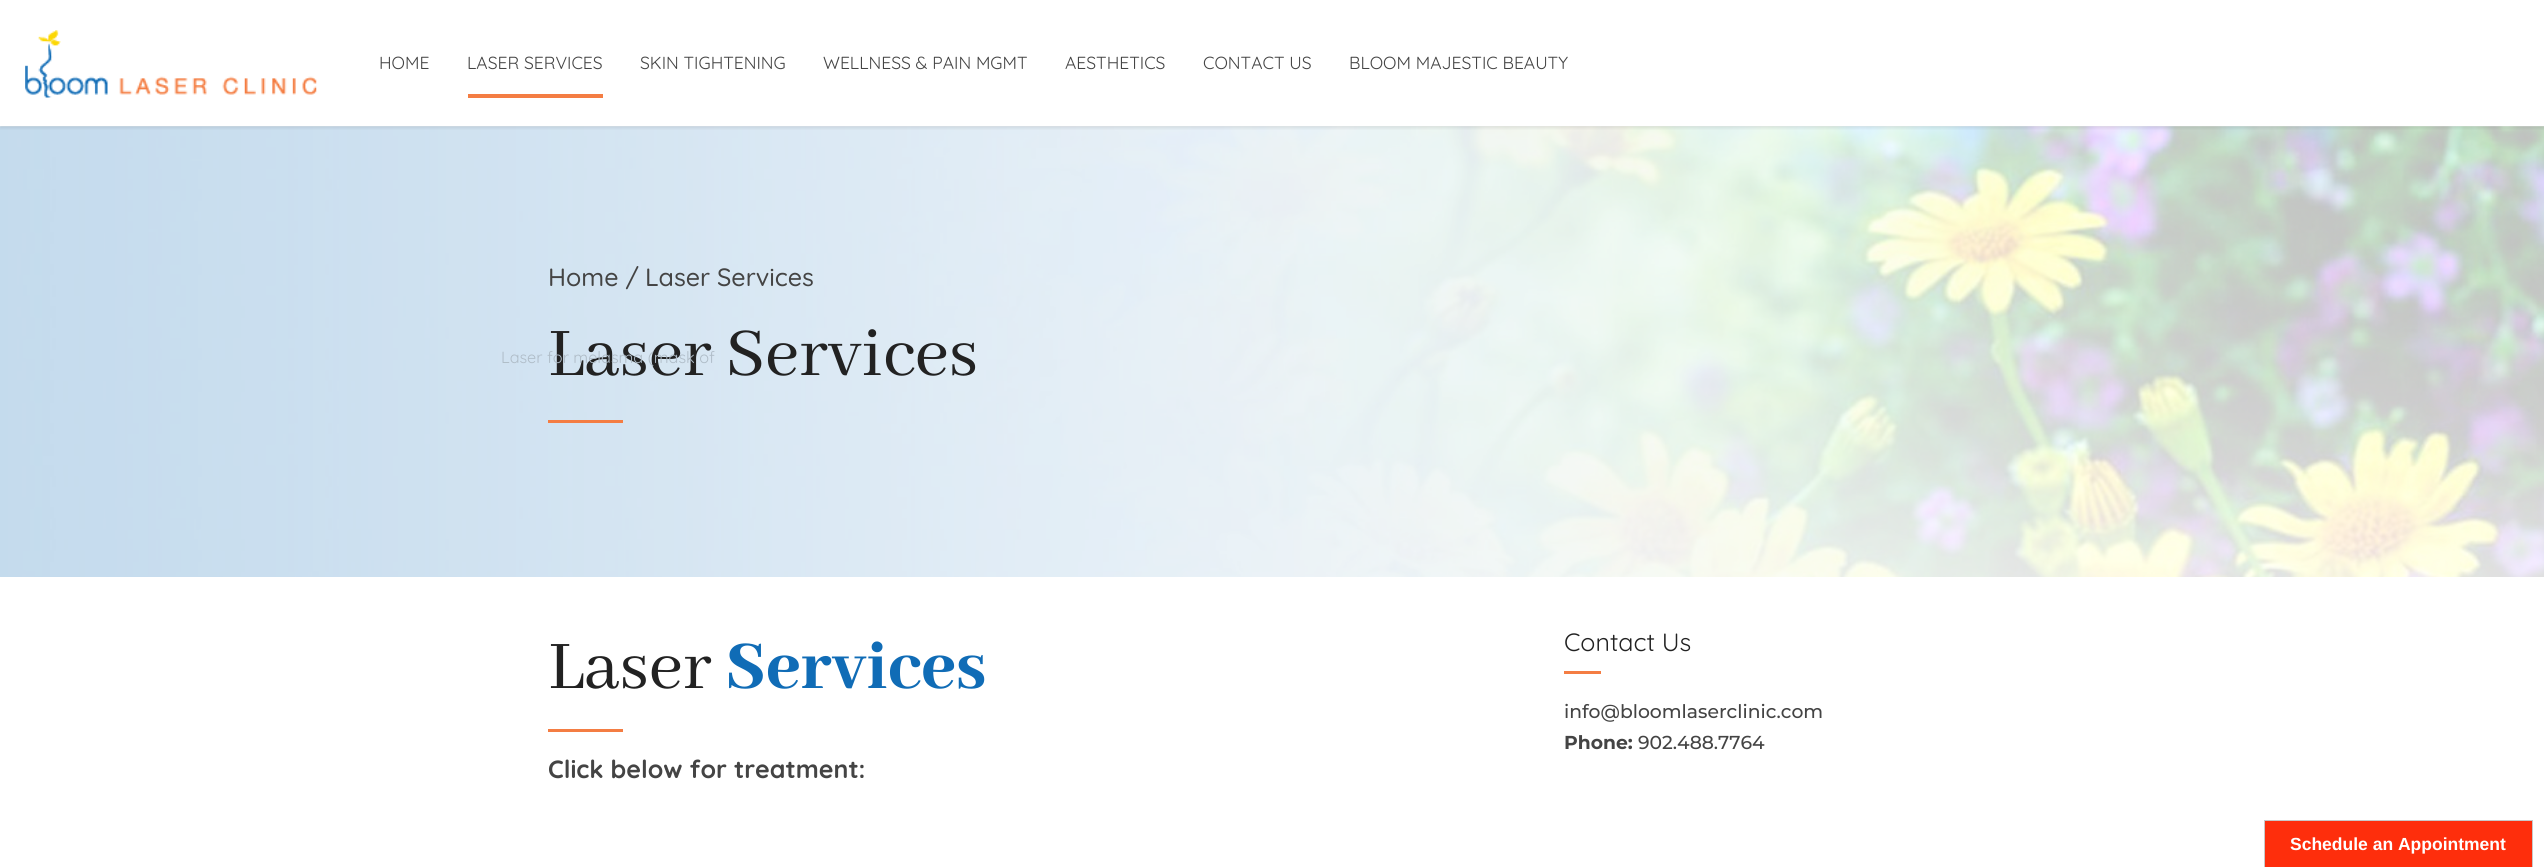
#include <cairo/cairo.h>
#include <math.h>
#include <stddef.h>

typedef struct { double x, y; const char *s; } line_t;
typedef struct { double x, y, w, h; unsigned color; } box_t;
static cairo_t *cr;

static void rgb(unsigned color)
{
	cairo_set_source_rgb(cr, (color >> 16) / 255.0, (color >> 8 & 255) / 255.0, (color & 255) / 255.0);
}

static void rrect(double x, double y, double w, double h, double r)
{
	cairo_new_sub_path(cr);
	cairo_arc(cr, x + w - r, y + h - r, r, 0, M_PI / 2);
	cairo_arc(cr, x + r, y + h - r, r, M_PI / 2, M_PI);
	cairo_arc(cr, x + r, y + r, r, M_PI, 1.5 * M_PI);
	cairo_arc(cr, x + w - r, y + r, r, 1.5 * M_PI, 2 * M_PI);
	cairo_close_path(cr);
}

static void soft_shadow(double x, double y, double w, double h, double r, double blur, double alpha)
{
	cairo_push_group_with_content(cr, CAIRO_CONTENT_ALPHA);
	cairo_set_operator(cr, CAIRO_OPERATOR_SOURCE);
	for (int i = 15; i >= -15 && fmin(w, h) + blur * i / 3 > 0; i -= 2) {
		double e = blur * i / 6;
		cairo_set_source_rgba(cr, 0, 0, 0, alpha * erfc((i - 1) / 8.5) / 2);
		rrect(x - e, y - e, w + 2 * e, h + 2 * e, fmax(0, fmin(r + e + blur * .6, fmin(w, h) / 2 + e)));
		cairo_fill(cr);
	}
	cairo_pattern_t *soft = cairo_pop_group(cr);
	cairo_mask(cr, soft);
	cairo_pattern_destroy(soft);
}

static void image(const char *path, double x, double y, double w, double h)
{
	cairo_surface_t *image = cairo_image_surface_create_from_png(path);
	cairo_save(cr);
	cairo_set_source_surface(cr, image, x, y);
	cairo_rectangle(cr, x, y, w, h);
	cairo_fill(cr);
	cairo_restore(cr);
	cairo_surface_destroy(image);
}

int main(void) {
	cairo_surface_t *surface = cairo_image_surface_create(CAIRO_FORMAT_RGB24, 2544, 867);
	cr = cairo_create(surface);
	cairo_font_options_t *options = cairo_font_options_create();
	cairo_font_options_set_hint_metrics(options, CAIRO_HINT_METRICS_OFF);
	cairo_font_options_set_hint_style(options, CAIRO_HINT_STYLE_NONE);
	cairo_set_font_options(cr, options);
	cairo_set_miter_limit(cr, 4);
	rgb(0xffffff);
	cairo_paint(cr);
	image("img/2.png", 0, 126, 2544, 451);
	cairo_save(cr);
	cairo_rectangle(cr, 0, 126, 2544, 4);
	cairo_clip(cr);
	rgb(0x000000);
	soft_shadow(0, 1, 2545, 127, 0, 2, 0.1);
	cairo_restore(cr);
	image("img/1.png", 25, 30, 292, 68);
	{
		static const box_t items[] = {
			{468, 94, 135, 4, 0xf47d43},
			{548, 420, 75, 3, 0xf47d43},
			{1564, 671, 37, 3, 0xf47d43},
			{548, 729, 75, 3, 0xf47d43},
		};
		for (size_t i = 0; i < sizeof items / sizeof *items; i++) {
			rgb(items[i].color);
			cairo_rectangle(cr, items[i].x, items[i].y, items[i].w, items[i].h);
			cairo_fill(cr);
		}
	}
	rgb(0xfe2e0c);
	cairo_rectangle(cr, 2264.5, 820.5, 268, 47);
	cairo_fill_preserve(cr);
	rgb(0xc8c8c8);
	cairo_set_line_width(cr, 1);
	cairo_stroke(cr);
	cairo_select_font_face(cr, "Quicksand", CAIRO_FONT_SLANT_NORMAL, CAIRO_FONT_WEIGHT_NORMAL);
	cairo_set_font_size(cr, 17.5);
	rgb(0x444444);
	{
		static const line_t items[] = {
			{379, 69, "HOME"},
			{467, 69, "LASER SERVICES"},
			{640, 69, "SKIN TIGHTENING"},
			{823, 69, "WELLNESS & PAIN MGMT"},
			{1065, 69, "AESTHETICS"},
			{1203, 69, "CONTACT US"},
			{1349, 69, "BLOOM MAJESTIC BEAUTY"},
		};
		for (size_t i = 0; i < sizeof items / sizeof *items; i++) {
			cairo_move_to(cr, items[i].x, items[i].y);
			cairo_show_text(cr, items[i].s);
		}
	}
	cairo_select_font_face(cr, "Quicksand Medium", CAIRO_FONT_SLANT_NORMAL, CAIRO_FONT_WEIGHT_NORMAL);
	cairo_set_font_size(cr, 25);
	cairo_move_to(cr, 548, 286);
	cairo_show_text(cr, "Home /");
	cairo_move_to(cr, 645, 286);
	cairo_show_text(cr, "Laser Services");
	cairo_select_font_face(cr, "Abhaya Libre", CAIRO_FONT_SLANT_NORMAL, CAIRO_FONT_WEIGHT_NORMAL);
	cairo_set_font_size(cr, 75);
	rgb(0x222222);
	cairo_move_to(cr, 548, 375);
	cairo_show_text(cr, "Laser Services");
	cairo_select_font_face(cr, "Quicksand", CAIRO_FONT_SLANT_NORMAL, CAIRO_FONT_WEIGHT_NORMAL);
	cairo_set_font_size(cr, 16.25);
	rgb(0xafbcc7);
	cairo_move_to(cr, 501, 363);
	cairo_show_text(cr, "Laser for melasma (mask of");
	cairo_set_font_size(cr, 25);
	rgb(0x222222);
	cairo_move_to(cr, 1564, 651);
	cairo_show_text(cr, "Contact Us");
	cairo_select_font_face(cr, "Montserrat Medium", CAIRO_FONT_SLANT_NORMAL, CAIRO_FONT_WEIGHT_NORMAL);
	cairo_set_font_size(cr, 18.75);
	rgb(0x444444);
	cairo_move_to(cr, 1564, 718);
	cairo_show_text(cr, "info@bloomlaserclinic.com");
	cairo_select_font_face(cr, "Montserrat", CAIRO_FONT_SLANT_NORMAL, CAIRO_FONT_WEIGHT_BOLD);
	cairo_move_to(cr, 1564, 749);
	cairo_show_text(cr, "Phone:");
	cairo_select_font_face(cr, "Montserrat Medium", CAIRO_FONT_SLANT_NORMAL, CAIRO_FONT_WEIGHT_NORMAL);
	cairo_move_to(cr, 1638, 749);
	cairo_show_text(cr, "902.488.7764");
	cairo_select_font_face(cr, "Abhaya Libre", CAIRO_FONT_SLANT_NORMAL, CAIRO_FONT_WEIGHT_NORMAL);
	cairo_set_font_size(cr, 75);
	rgb(0x222222);
	cairo_move_to(cr, 548, 688);
	cairo_show_text(cr, "Laser");
	cairo_select_font_face(cr, "Abhaya Libre ExtraBold ExtraBold", CAIRO_FONT_SLANT_NORMAL, CAIRO_FONT_WEIGHT_NORMAL);
	rgb(0x106cb6);
	cairo_move_to(cr, 725, 688);
	cairo_show_text(cr, "Services");
	cairo_select_font_face(cr, "Quicksand", CAIRO_FONT_SLANT_NORMAL, CAIRO_FONT_WEIGHT_BOLD);
	cairo_set_font_size(cr, 25);
	rgb(0x444444);
	cairo_move_to(cr, 548, 778);
	cairo_show_text(cr, "Click below for treatment:");
	cairo_select_font_face(cr, "Liberation Sans", CAIRO_FONT_SLANT_NORMAL, CAIRO_FONT_WEIGHT_BOLD);
	cairo_set_font_size(cr, 17.5);
	rgb(0xffffff);
	cairo_move_to(cr, 2290, 850);
	cairo_show_text(cr, "Schedule an Appointment");
	cairo_surface_write_to_png(surface, "page.png");
	cairo_font_options_destroy(options);
	cairo_destroy(cr);
	cairo_surface_destroy(surface);
	return 0;
}
